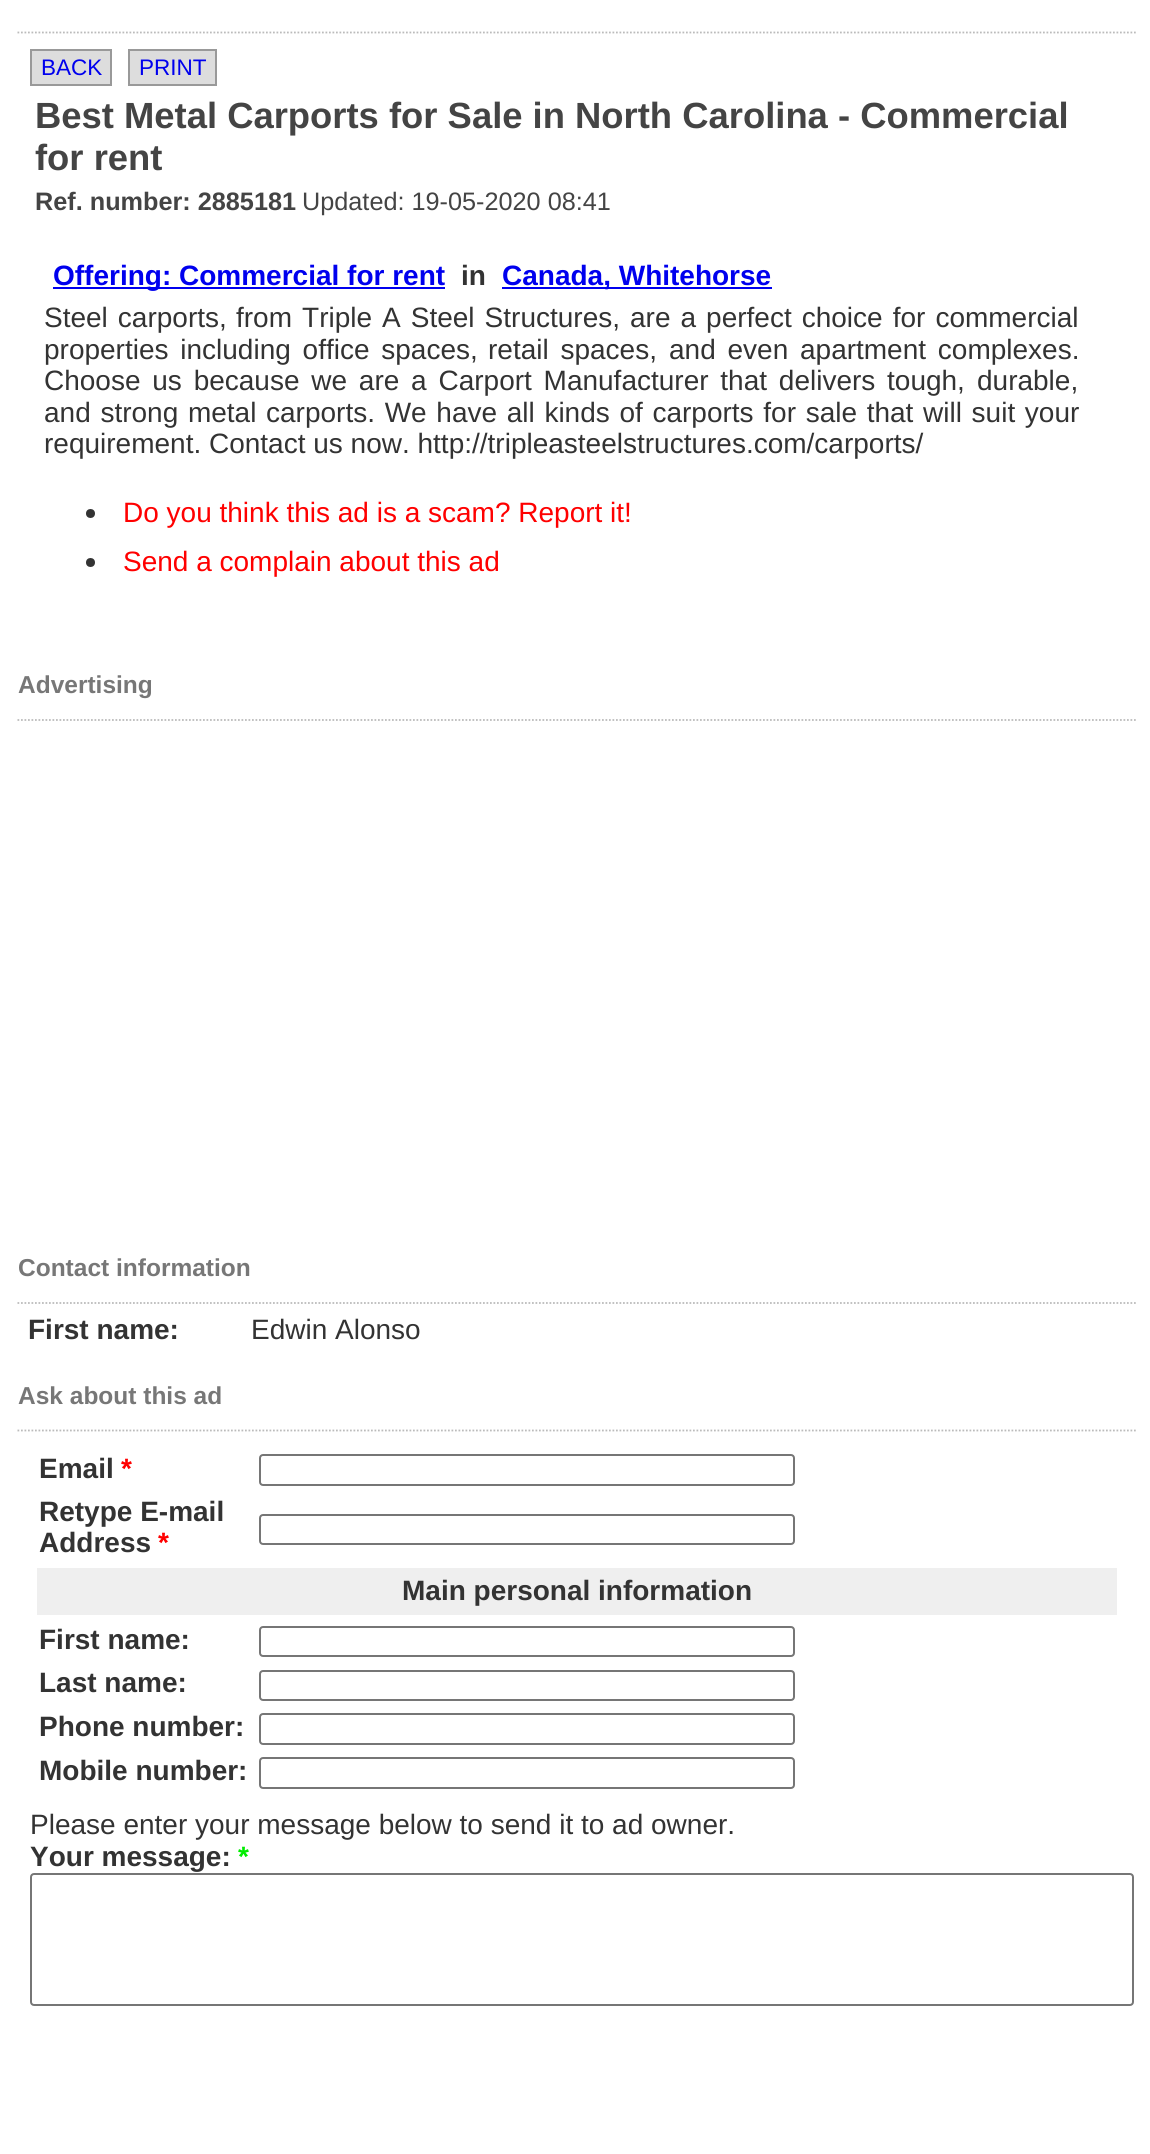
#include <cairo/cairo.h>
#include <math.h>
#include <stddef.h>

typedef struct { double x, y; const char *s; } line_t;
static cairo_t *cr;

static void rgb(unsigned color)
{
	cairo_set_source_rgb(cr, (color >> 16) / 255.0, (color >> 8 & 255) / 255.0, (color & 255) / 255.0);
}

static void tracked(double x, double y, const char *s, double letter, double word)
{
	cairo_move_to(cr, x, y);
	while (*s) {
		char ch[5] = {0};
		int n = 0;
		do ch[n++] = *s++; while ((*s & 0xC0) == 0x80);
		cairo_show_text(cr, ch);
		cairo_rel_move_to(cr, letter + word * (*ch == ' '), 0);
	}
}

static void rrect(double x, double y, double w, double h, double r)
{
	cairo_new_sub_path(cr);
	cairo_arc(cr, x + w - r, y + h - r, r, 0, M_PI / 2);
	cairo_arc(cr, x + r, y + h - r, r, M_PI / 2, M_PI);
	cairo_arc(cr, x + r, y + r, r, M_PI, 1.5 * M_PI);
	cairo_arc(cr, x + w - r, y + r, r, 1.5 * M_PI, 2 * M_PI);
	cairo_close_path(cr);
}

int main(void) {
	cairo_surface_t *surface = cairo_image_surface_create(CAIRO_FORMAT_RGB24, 1150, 2154);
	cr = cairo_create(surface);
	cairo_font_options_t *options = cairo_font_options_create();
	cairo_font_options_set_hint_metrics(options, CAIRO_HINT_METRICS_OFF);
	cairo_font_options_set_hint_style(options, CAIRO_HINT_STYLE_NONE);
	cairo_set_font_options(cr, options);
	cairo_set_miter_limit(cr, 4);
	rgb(0xffffff);
	cairo_paint(cr);
	cairo_new_path(cr);
	cairo_move_to(cr, 17.5, 32.5);
	cairo_line_to(cr, 1136, 32.5);
	rgb(0xbbbbbb);
	cairo_set_line_width(cr, 1.8);
	cairo_set_dash(cr, (double[]){1.75, 1.75}, 2, 0);
	cairo_stroke(cr);
	rgb(0xdddddd);
	cairo_rectangle(cr, 31, 50, 80, 35);
	cairo_fill_preserve(cr);
	rgb(0x999999);
	cairo_set_line_width(cr, 2);
	cairo_set_dash(cr, NULL, 0, 0);
	cairo_stroke(cr);
	rgb(0xdddddd);
	cairo_rectangle(cr, 129, 50, 87, 35);
	cairo_fill_preserve(cr);
	rgb(0x999999);
	cairo_stroke(cr);
	rgb(0x0000ee);
	cairo_rectangle(cr, 53, 287, 392, 2);
	cairo_fill(cr);
	cairo_rectangle(cr, 502, 287, 270, 2);
	cairo_fill(cr);
	rgb(0x333333);
	cairo_arc(cr, 90.5, 513.5, 4.5, 0, 2 * M_PI);
	cairo_fill(cr);
	cairo_arc(cr, 90.5, 562.5, 4.5, 0, 2 * M_PI);
	cairo_fill(cr);
	cairo_new_path(cr);
	cairo_move_to(cr, 17.5, 720);
	cairo_line_to(cr, 1136, 720);
	rgb(0xbbbbbb);
	cairo_set_line_width(cr, 1.8);
	cairo_set_dash(cr, (double[]){1.75, 1.75}, 2, 0);
	cairo_stroke(cr);
	cairo_new_path(cr);
	cairo_move_to(cr, 17.5, 1303);
	cairo_line_to(cr, 1136, 1303);
	cairo_stroke(cr);
	cairo_new_path(cr);
	cairo_move_to(cr, 17.5, 1430.5);
	cairo_line_to(cr, 1136, 1430.5);
	cairo_stroke(cr);
	rrect(260, 1455, 534, 30, 3);
	rgb(0x767676);
	cairo_set_line_width(cr, 2);
	cairo_set_dash(cr, NULL, 0, 0);
	cairo_stroke(cr);
	rrect(260, 1515, 534, 29, 3);
	cairo_stroke(cr);
	rgb(0xefefef);
	cairo_rectangle(cr, 37, 1568, 1080, 47);
	cairo_fill(cr);
	rrect(260, 1627, 534, 29, 3);
	rgb(0x767676);
	cairo_stroke(cr);
	rrect(260, 1671, 534, 29, 3);
	cairo_stroke(cr);
	rrect(260, 1714, 534, 30, 3);
	cairo_stroke(cr);
	rrect(260, 1758, 534, 30, 3);
	cairo_stroke(cr);
	rrect(31, 1874, 1102, 131, 3);
	cairo_stroke(cr);
	cairo_select_font_face(cr, "Liberation Sans", CAIRO_FONT_SLANT_NORMAL, CAIRO_FONT_WEIGHT_NORMAL);
	cairo_set_font_size(cr, 22.5);
	rgb(0x0000ee);
	cairo_move_to(cr, 41, 75);
	cairo_show_text(cr, "BACK");
	cairo_move_to(cr, 139, 75);
	cairo_show_text(cr, "PRINT");
	cairo_select_font_face(cr, "Liberation Sans", CAIRO_FONT_SLANT_NORMAL, CAIRO_FONT_WEIGHT_BOLD);
	cairo_set_font_size(cr, 36.4);
	rgb(0x444444);
	cairo_move_to(cr, 35, 128);
	cairo_show_text(cr, "Best Metal Carports for Sale in North Carolina - Commercial");
	cairo_move_to(cr, 35, 170);
	cairo_show_text(cr, "for rent");
	cairo_set_font_size(cr, 25.25);
	cairo_move_to(cr, 35, 210);
	cairo_show_text(cr, "Ref. number: 2885181");
	cairo_select_font_face(cr, "Liberation Sans", CAIRO_FONT_SLANT_NORMAL, CAIRO_FONT_WEIGHT_NORMAL);
	cairo_move_to(cr, 302, 210);
	cairo_show_text(cr, "Updated: 19-05-2020 08:41");
	cairo_select_font_face(cr, "Liberation Sans", CAIRO_FONT_SLANT_NORMAL, CAIRO_FONT_WEIGHT_BOLD);
	cairo_set_font_size(cr, 28);
	rgb(0x0000ee);
	cairo_move_to(cr, 53, 285);
	cairo_show_text(cr, "Offering: Commercial for rent");
	rgb(0x333333);
	cairo_move_to(cr, 461, 285);
	cairo_show_text(cr, "in");
	rgb(0x0000ee);
	cairo_move_to(cr, 502, 285);
	cairo_show_text(cr, "Canada, Whitehorse");
	cairo_select_font_face(cr, "Liberation Sans", CAIRO_FONT_SLANT_NORMAL, CAIRO_FONT_WEIGHT_NORMAL);
	rgb(0x333333);
	{
		static const line_t items[] = {
			{44, 327, "Steel carports,"},
			{236, 327, "from Triple A Steel Structures,"},
			{630, 327, "are a perfect choice for commercial"},
		};
		for (size_t i = 0; i < sizeof items / sizeof *items; i++) {
			tracked(items[i].x, items[i].y, items[i].s, 0, 2.25);
		}
	}
	{
		static const line_t items[] = {
			{44, 359, "properties including office spaces,"},
			{488, 359, "retail spaces,"},
			{669, 359, "and even apartment complexes."},
			{44, 390, "Choose us because we are a Carport Manufacturer that delivers tough,"},
		};
		for (size_t i = 0; i < sizeof items / sizeof *items; i++) {
			tracked(items[i].x, items[i].y, items[i].s, 0, 4);
		}
	}
	cairo_move_to(cr, 977, 390);
	cairo_show_text(cr, "durable,");
	tracked(44, 422, "and strong metal carports. We have all kinds of carports for sale that will suit your", 0, 1.9);
	cairo_move_to(cr, 44, 453);
	cairo_show_text(cr, "requirement. Contact us now. http://tripleasteelstructures.com/carports/");
	rgb(0xff0000);
	cairo_move_to(cr, 123, 522);
	cairo_show_text(cr, "Do you think this ad is a scam? Report it!");
	cairo_move_to(cr, 123, 571);
	cairo_show_text(cr, "Send a complain about this ad");
	cairo_select_font_face(cr, "Liberation Sans", CAIRO_FONT_SLANT_NORMAL, CAIRO_FONT_WEIGHT_BOLD);
	cairo_set_font_size(cr, 24.5);
	rgb(0x777777);
	cairo_move_to(cr, 18, 693);
	cairo_show_text(cr, "Advertising");
	cairo_move_to(cr, 18, 1276);
	cairo_show_text(cr, "Contact information");
	cairo_set_font_size(cr, 28);
	rgb(0x333333);
	cairo_move_to(cr, 28, 1339);
	cairo_show_text(cr, "First name:");
	cairo_select_font_face(cr, "Liberation Sans", CAIRO_FONT_SLANT_NORMAL, CAIRO_FONT_WEIGHT_NORMAL);
	cairo_move_to(cr, 251, 1339);
	cairo_show_text(cr, "Edwin Alonso");
	cairo_select_font_face(cr, "Liberation Sans", CAIRO_FONT_SLANT_NORMAL, CAIRO_FONT_WEIGHT_BOLD);
	cairo_set_font_size(cr, 24.5);
	rgb(0x777777);
	cairo_move_to(cr, 18, 1404);
	cairo_show_text(cr, "Ask about this ad");
	cairo_set_font_size(cr, 28);
	rgb(0x333333);
	cairo_move_to(cr, 39, 1478);
	cairo_show_text(cr, "Email");
	rgb(0xff0000);
	cairo_move_to(cr, 121, 1478);
	cairo_show_text(cr, "*");
	rgb(0x333333);
	cairo_move_to(cr, 39, 1521);
	cairo_show_text(cr, "Retype E-mail");
	cairo_move_to(cr, 39, 1552);
	cairo_show_text(cr, "Address");
	rgb(0xff0000);
	cairo_move_to(cr, 158, 1552);
	cairo_show_text(cr, "*");
	rgb(0x333333);
	{
		static const line_t items[] = {
			{402, 1600, "Main personal information"},
			{39, 1649, "First name:"},
			{39, 1692, "Last name:"},
			{39, 1736, "Phone number:"},
			{39, 1780, "Mobile number:"},
		};
		for (size_t i = 0; i < sizeof items / sizeof *items; i++) {
			cairo_move_to(cr, items[i].x, items[i].y);
			cairo_show_text(cr, items[i].s);
		}
	}
	cairo_select_font_face(cr, "Liberation Sans", CAIRO_FONT_SLANT_NORMAL, CAIRO_FONT_WEIGHT_NORMAL);
	cairo_move_to(cr, 30, 1834);
	cairo_show_text(cr, "Please enter your message below to send it to ad owner.");
	cairo_select_font_face(cr, "Liberation Sans", CAIRO_FONT_SLANT_NORMAL, CAIRO_FONT_WEIGHT_BOLD);
	cairo_move_to(cr, 30, 1866);
	cairo_show_text(cr, "Your message:");
	rgb(0x00ed00);
	cairo_move_to(cr, 238, 1866);
	cairo_show_text(cr, "*");
	cairo_surface_write_to_png(surface, "page.png");
	cairo_font_options_destroy(options);
	cairo_destroy(cr);
	cairo_surface_destroy(surface);
	return 0;
}
